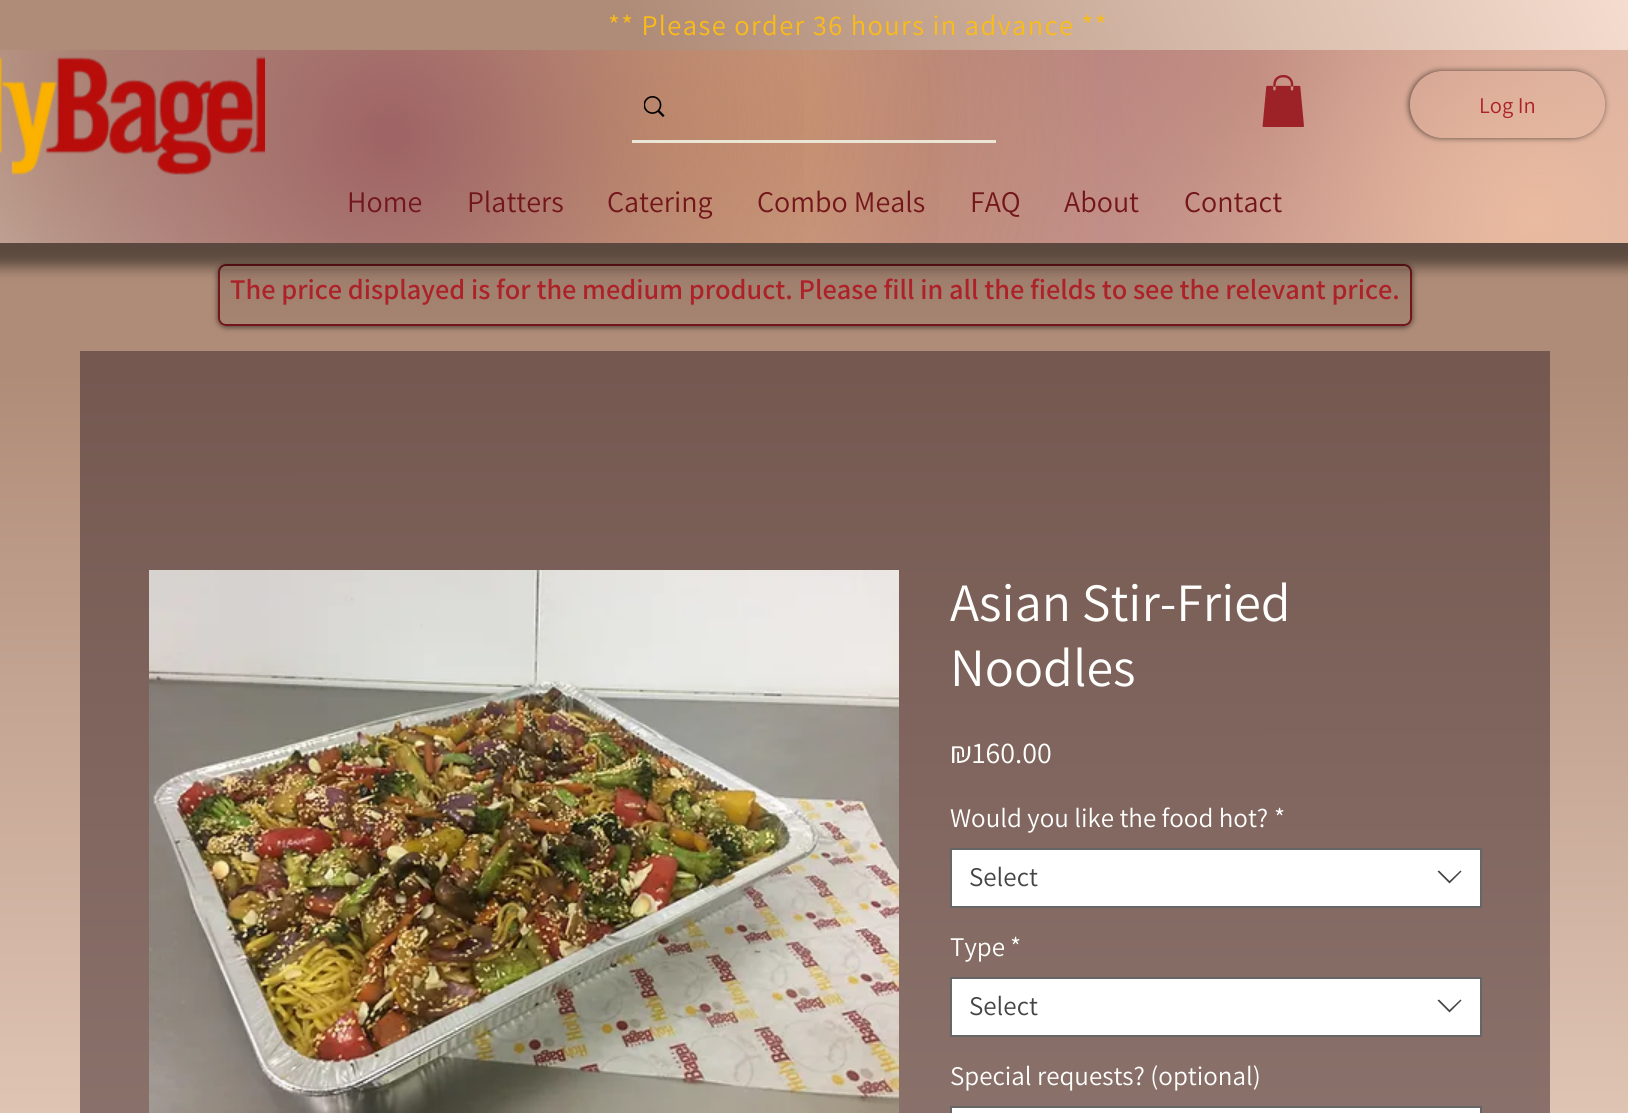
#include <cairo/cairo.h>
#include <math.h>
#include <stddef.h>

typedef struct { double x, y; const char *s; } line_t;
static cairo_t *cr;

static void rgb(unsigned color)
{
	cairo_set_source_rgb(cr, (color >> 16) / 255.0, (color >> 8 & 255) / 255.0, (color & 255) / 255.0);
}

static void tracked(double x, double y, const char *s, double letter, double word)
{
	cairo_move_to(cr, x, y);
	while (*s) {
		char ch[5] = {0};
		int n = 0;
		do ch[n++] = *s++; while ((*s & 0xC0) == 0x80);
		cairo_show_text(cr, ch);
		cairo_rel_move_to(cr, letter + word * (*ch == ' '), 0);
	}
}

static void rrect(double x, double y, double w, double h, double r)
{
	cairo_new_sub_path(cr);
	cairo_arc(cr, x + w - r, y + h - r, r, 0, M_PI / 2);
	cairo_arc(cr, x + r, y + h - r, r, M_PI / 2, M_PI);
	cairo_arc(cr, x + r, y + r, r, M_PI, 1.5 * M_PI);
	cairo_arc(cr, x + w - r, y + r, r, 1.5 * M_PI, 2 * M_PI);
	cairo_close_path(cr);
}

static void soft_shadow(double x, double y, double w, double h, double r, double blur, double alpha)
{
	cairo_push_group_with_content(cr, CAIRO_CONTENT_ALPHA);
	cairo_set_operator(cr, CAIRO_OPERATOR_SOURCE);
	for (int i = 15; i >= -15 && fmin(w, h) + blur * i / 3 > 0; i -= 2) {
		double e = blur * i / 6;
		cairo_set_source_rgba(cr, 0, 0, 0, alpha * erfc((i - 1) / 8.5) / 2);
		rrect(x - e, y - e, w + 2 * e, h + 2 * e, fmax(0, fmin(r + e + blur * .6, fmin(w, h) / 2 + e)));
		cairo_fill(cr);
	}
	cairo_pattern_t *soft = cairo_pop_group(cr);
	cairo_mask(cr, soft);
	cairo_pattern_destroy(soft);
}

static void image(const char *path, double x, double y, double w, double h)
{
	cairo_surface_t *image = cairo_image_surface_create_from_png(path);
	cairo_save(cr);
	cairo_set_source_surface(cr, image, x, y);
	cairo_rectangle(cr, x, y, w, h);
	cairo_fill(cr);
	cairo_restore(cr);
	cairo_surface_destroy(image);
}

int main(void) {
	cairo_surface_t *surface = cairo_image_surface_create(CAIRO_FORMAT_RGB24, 1628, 1113);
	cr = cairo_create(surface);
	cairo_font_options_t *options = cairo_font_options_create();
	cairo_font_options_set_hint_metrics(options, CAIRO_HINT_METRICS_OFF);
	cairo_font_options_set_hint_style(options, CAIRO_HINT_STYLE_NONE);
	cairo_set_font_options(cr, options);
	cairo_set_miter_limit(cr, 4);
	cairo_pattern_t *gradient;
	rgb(0xffffff);
	cairo_paint(cr);
	gradient = cairo_pattern_create_linear(814, 243, 815, 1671);
	cairo_pattern_add_color_stop_rgba(gradient, 0.09, 0.686, 0.549, 0.471, 1);
	cairo_pattern_add_color_stop_rgba(gradient, 0.84, 0.957, 0.863, 0.808, 1);
	cairo_set_source(cr, gradient);
	cairo_pattern_destroy(gradient);
	cairo_rectangle(cr, 0, 243, 1628, 870);
	cairo_fill(cr);
	cairo_save(cr);
	cairo_set_fill_rule(cr, CAIRO_FILL_RULE_EVEN_ODD);
	cairo_new_path(cr);
	cairo_move_to(cr, 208, 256);
	cairo_line_to(cr, 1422, 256);
	cairo_line_to(cr, 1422, 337);
	cairo_line_to(cr, 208, 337);
	cairo_close_path(cr);
	cairo_move_to(cr, 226, 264);
	cairo_line_to(cr, 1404, 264);
	cairo_curve_to(cr, 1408.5, 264, 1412, 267.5, 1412, 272);
	cairo_line_to(cr, 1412, 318);
	cairo_curve_to(cr, 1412, 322.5, 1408.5, 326, 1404, 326);
	cairo_line_to(cr, 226, 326);
	cairo_curve_to(cr, 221.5, 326, 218, 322.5, 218, 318);
	cairo_line_to(cr, 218, 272);
	cairo_curve_to(cr, 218, 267.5, 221.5, 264, 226, 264);
	cairo_close_path(cr);
	cairo_clip(cr);
	rgb(0x000000);
	soft_shadow(218, 266, 1194, 61, 8, 3, 0.6);
	cairo_restore(cr);
	image("img/4.png", 218, 268, 1193, 57);
	rrect(219, 265, 1192, 60, 7);
	rgb(0x73161b);
	cairo_stroke(cr);
	rgb(0x000000);
	soft_shadow(-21, -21, 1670, 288, 0, 7, 0.48);
	gradient = cairo_pattern_create_radial(797, 120, 0, 797, 120, 841);
	cairo_pattern_add_color_stop_rgba(gradient, 0, 0.894, 0.651, 0.663, 1);
	cairo_pattern_add_color_stop_rgba(gradient, 1, 1, 1, 1, 1);
	cairo_set_source(cr, gradient);
	cairo_pattern_destroy(gradient);
	cairo_rectangle(cr, 0, 50, 1628, 193);
	cairo_fill(cr);
	gradient = cairo_pattern_create_radial(1260, 95, 0, 1260, 95, 1269);
	cairo_pattern_add_color_stop_rgba(gradient, 0, 0.616, 0.388, 0.396, 1);
	cairo_pattern_add_color_stop_rgba(gradient, 0.7, 0.616, 0.388, 0.396, 0);
	cairo_set_source(cr, gradient);
	cairo_pattern_destroy(gradient);
	cairo_rectangle(cr, 395, 50, 1233, 193);
	cairo_fill(cr);
	gradient = cairo_pattern_create_radial(100, 31, 0, 100, 31, 1543);
	cairo_pattern_add_color_stop_rgba(gradient, 0, 0.686, 0.549, 0.471, 1);
	cairo_pattern_add_color_stop_rgba(gradient, 0.7, 0.686, 0.549, 0.471, 0);
	cairo_set_source(cr, gradient);
	cairo_pattern_destroy(gradient);
	cairo_rectangle(cr, 0, 50, 1074, 193);
	cairo_fill(cr);
	gradient = cairo_pattern_create_radial(645, 124, 0, 645, 124, 992);
	cairo_pattern_add_color_stop_rgba(gradient, 0, 0.984, 0.737, 0.086, 0.23);
	cairo_pattern_add_color_stop_rgba(gradient, 0.5, 0.984, 0.737, 0.086, 0);
	cairo_set_source(cr, gradient);
	cairo_pattern_destroy(gradient);
	cairo_rectangle(cr, 195, 50, 900, 193);
	cairo_fill(cr);
	gradient = cairo_pattern_create_radial(1537, 218, 0, 1537, 218, 1552);
	cairo_pattern_add_color_stop_rgba(gradient, 0, 0.914, 0.733, 0.627, 1);
	cairo_pattern_add_color_stop_rgba(gradient, 0.4, 0.914, 0.733, 0.627, 0);
	cairo_set_source(cr, gradient);
	cairo_pattern_destroy(gradient);
	cairo_rectangle(cr, 939, 50, 689, 193);
	cairo_fill(cr);
	gradient = cairo_pattern_create_radial(391, 135, 0, 391, 135, 1245);
	cairo_pattern_add_color_stop_rgba(gradient, 0, 0.616, 0.388, 0.396, 1);
	cairo_pattern_add_color_stop_rgba(gradient, 0.35, 0.616, 0.388, 0.396, 0);
	cairo_set_source(cr, gradient);
	cairo_pattern_destroy(gradient);
	cairo_rectangle(cr, 0, 50, 804, 193);
	cairo_fill(cr);
	gradient = cairo_pattern_create_linear(126, 331, 1503, -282);
	cairo_pattern_add_color_stop_rgba(gradient, 0.39, 0.686, 0.549, 0.471, 1);
	cairo_pattern_add_color_stop_rgba(gradient, 1, 0.957, 0.863, 0.808, 1);
	cairo_set_source(cr, gradient);
	cairo_pattern_destroy(gradient);
	cairo_rectangle(cr, 0, 0, 1628, 50);
	cairo_fill(cr);
	image("img/1.png", 0, 56, 266, 119);
	rgb(0xebe5d6);
	cairo_rectangle(cr, 632, 140, 364, 3);
	cairo_fill(cr);
	image("img/2.png", 644, 96, 21, 21);
	image("img/3.png", 1262, 75, 42, 52);
	cairo_save(cr);
	cairo_set_fill_rule(cr, CAIRO_FILL_RULE_EVEN_ODD);
	cairo_new_path(cr);
	cairo_move_to(cr, 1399, 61);
	cairo_line_to(cr, 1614, 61);
	cairo_line_to(cr, 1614, 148);
	cairo_line_to(cr, 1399, 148);
	cairo_close_path(cr);
	cairo_move_to(cr, 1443.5, 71);
	cairo_line_to(cr, 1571.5, 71);
	cairo_curve_to(cr, 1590, 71, 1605, 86, 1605, 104.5);
	cairo_curve_to(cr, 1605, 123, 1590, 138, 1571.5, 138);
	cairo_line_to(cr, 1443.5, 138);
	cairo_curve_to(cr, 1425, 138, 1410, 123, 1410, 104.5);
	cairo_curve_to(cr, 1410, 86, 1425, 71, 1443.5, 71);
	cairo_close_path(cr);
	cairo_clip(cr);
	rgb(0x000000);
	soft_shadow(1409, 71, 195, 67, 33.5, 3, 0.6);
	cairo_restore(cr);
	gradient = cairo_pattern_create_linear(814, 243, 815, 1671);
	cairo_pattern_add_color_stop_rgba(gradient, 0.09, 0.459, 0.349, 0.318, 1);
	cairo_pattern_add_color_stop_rgba(gradient, 0.84, 0.573, 0.482, 0.459, 1);
	cairo_set_source(cr, gradient);
	cairo_pattern_destroy(gradient);
	cairo_rectangle(cr, 80, 351, 1470, 762);
	cairo_fill(cr);
	image("img/5.png", 149, 570, 750, 543);
	rgb(0xffffff);
	cairo_rectangle(cr, 951, 849, 530, 58);
	cairo_fill_preserve(cr);
	rgb(0x666666);
	cairo_stroke(cr);
	rgb(0x444444);
	cairo_set_fill_rule(cr, CAIRO_FILL_RULE_EVEN_ODD);
	cairo_new_path(cr);
	cairo_move_to(cr, 1460.5, 870.5);
	cairo_line_to(cr, 1461.5, 871.5);
	cairo_line_to(cr, 1449.5, 883.5);
	cairo_line_to(cr, 1437.5, 871.5);
	cairo_line_to(cr, 1439, 870.5);
	cairo_line_to(cr, 1449.5, 881);
	cairo_close_path(cr);
	cairo_fill(cr);
	rgb(0xffffff);
	cairo_rectangle(cr, 951, 978, 530, 58);
	cairo_fill_preserve(cr);
	rgb(0x666666);
	cairo_stroke(cr);
	rgb(0x444444);
	cairo_new_path(cr);
	cairo_move_to(cr, 1460.5, 999.5);
	cairo_line_to(cr, 1461.5, 1000.5);
	cairo_line_to(cr, 1449.5, 1012.5);
	cairo_line_to(cr, 1437.5, 1000.5);
	cairo_line_to(cr, 1439, 999.5);
	cairo_line_to(cr, 1449.5, 1010);
	cairo_close_path(cr);
	cairo_fill(cr);
	rgb(0xffffff);
	cairo_rectangle(cr, 951, 1107, 530, 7);
	cairo_fill_preserve(cr);
	rgb(0x666666);
	cairo_stroke(cr);
	cairo_select_font_face(cr, "Assistant", CAIRO_FONT_SLANT_NORMAL, CAIRO_FONT_WEIGHT_NORMAL);
	cairo_set_font_size(cr, 28.5);
	rgb(0xfbbc16);
	tracked(608, 35, "** Please order 36 hours in advance **", 1.4, 0);
	cairo_set_font_size(cr, 30);
	rgb(0x73161b);
	{
		static const line_t items[] = {
			{347, 212, "Home"},
			{467, 212, "Platters"},
			{607, 212, "Catering"},
			{757, 212, "Combo Meals"},
			{970, 212, "FAQ"},
			{1064, 212, "About"},
			{1184, 212, "Contact"},
		};
		for (size_t i = 0; i < sizeof items / sizeof *items; i++) {
			cairo_move_to(cr, items[i].x, items[i].y);
			cairo_show_text(cr, items[i].s);
		}
	}
	cairo_set_font_size(cr, 22.5);
	rgb(0xad2128);
	cairo_move_to(cr, 1479, 113);
	cairo_show_text(cr, "Log In");
	cairo_select_font_face(cr, "Assistant SemiBold", CAIRO_FONT_SLANT_NORMAL, CAIRO_FONT_WEIGHT_NORMAL);
	cairo_set_font_size(cr, 28.5);
	cairo_move_to(cr, 230, 299);
	cairo_show_text(cr, "The price displayed is for the medium product. Please fill in all the fields to see the relevant price.");
	cairo_select_font_face(cr, "Assistant", CAIRO_FONT_SLANT_NORMAL, CAIRO_FONT_WEIGHT_NORMAL);
	cairo_set_font_size(cr, 54);
	rgb(0xfffffe);
	cairo_move_to(cr, 950, 621);
	cairo_show_text(cr, "Asian Stir-Fried");
	cairo_move_to(cr, 950, 686);
	cairo_show_text(cr, "Noodles");
	cairo_set_font_size(cr, 30);
	cairo_move_to(cr, 950, 763);
	cairo_show_text(cr, "₪160.00");
	cairo_set_font_size(cr, 27);
	cairo_move_to(cr, 950, 827);
	cairo_show_text(cr, "Would you like the food hot?");
	cairo_move_to(cr, 1274, 827);
	cairo_show_text(cr, "*");
	rgb(0x444444);
	cairo_move_to(cr, 969, 886);
	cairo_show_text(cr, "Select");
	rgb(0xfffffe);
	cairo_move_to(cr, 950, 956);
	cairo_show_text(cr, "Type");
	cairo_move_to(cr, 1010, 956);
	cairo_show_text(cr, "*");
	rgb(0x444444);
	cairo_move_to(cr, 969, 1015);
	cairo_show_text(cr, "Select");
	rgb(0xfffffe);
	cairo_move_to(cr, 950, 1085);
	cairo_show_text(cr, "Special requests? (optional)");
	cairo_surface_write_to_png(surface, "page.png");
	cairo_font_options_destroy(options);
	cairo_destroy(cr);
	cairo_surface_destroy(surface);
	return 0;
}
